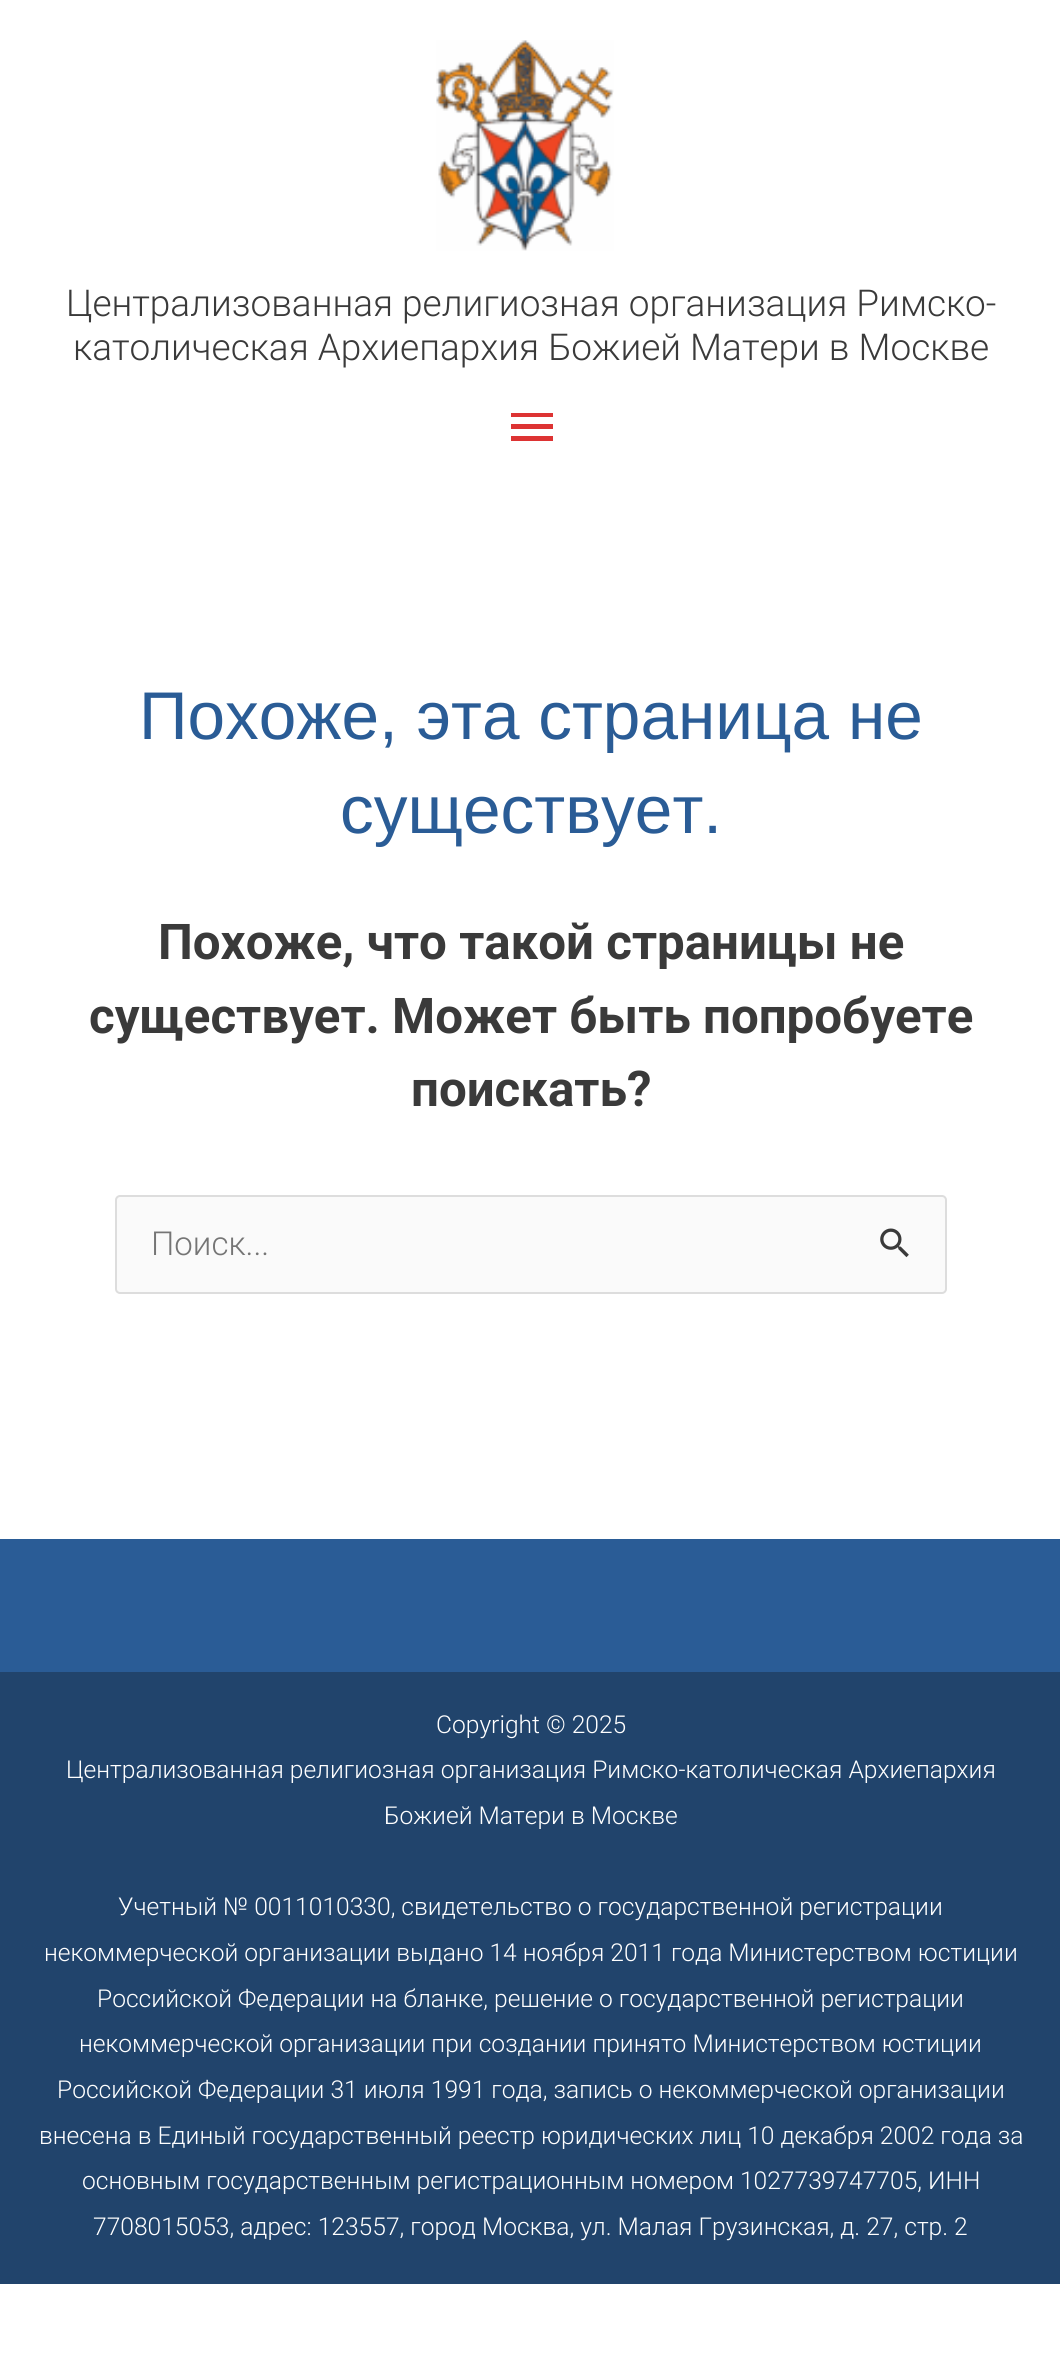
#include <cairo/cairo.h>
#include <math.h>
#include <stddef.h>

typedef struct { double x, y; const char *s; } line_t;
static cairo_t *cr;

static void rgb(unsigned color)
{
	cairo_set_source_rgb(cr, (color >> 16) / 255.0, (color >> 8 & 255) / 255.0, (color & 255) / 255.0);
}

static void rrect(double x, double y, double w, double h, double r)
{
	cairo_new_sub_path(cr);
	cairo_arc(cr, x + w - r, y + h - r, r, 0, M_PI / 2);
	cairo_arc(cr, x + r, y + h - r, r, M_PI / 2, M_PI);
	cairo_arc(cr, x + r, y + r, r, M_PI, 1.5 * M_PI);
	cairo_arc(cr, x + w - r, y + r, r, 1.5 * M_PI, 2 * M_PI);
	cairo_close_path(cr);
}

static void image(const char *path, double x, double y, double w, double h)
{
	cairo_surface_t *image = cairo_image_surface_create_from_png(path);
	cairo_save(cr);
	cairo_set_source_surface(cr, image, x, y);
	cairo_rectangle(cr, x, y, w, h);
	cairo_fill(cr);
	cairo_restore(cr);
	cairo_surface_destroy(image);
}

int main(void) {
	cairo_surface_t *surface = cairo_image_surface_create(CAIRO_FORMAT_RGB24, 1060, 2378);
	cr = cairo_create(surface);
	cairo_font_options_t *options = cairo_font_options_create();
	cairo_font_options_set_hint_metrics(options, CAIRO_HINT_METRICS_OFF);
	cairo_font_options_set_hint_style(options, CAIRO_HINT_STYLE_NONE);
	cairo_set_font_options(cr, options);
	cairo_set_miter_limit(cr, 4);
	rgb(0xffffff);
	cairo_paint(cr);
	image("img/1.png", 436, 40, 178, 211);
	rgb(0xdd3333);
	cairo_new_path(cr);
	cairo_move_to(cr, 511, 413);
	cairo_line_to(cr, 553, 413);
	cairo_line_to(cr, 553, 417);
	cairo_line_to(cr, 511, 417);
	cairo_close_path(cr);
	cairo_move_to(cr, 511, 429);
	cairo_line_to(cr, 511, 424);
	cairo_line_to(cr, 553, 424);
	cairo_line_to(cr, 553, 429);
	cairo_close_path(cr);
	cairo_move_to(cr, 511, 441);
	cairo_line_to(cr, 511, 436);
	cairo_line_to(cr, 553, 436);
	cairo_line_to(cr, 553, 441);
	cairo_close_path(cr);
	cairo_fill(cr);
	rgb(0xfafafa);
	rrect(116, 1196, 830, 97, 4);
	cairo_fill_preserve(cr);
	rgb(0xdddddd);
	cairo_stroke(cr);
	image("img/2.png", 880, 1228, 29, 30);
	rgb(0x2a5c96);
	cairo_rectangle(cr, 0, 1539, 1060, 133);
	cairo_fill(cr);
	rgb(0x21446c);
	cairo_rectangle(cr, 0, 1672, 1060, 612);
	cairo_fill(cr);
	cairo_select_font_face(cr, "Roboto Light", CAIRO_FONT_SLANT_NORMAL, CAIRO_FONT_WEIGHT_NORMAL);
	cairo_set_font_size(cr, 36.95);
	rgb(0x3a3a3a);
	cairo_move_to(cr, 66, 316);
	cairo_show_text(cr, "Централизованная религиозная организация Римско-");
	cairo_move_to(cr, 73, 360);
	cairo_show_text(cr, "католическая Архиепархия Божией Матери в Москве");
	cairo_select_font_face(cr, "Liberation Sans", CAIRO_FONT_SLANT_NORMAL, CAIRO_FONT_WEIGHT_NORMAL);
	cairo_set_font_size(cr, 67.5);
	rgb(0x2a5c96);
	cairo_move_to(cr, 139, 739);
	cairo_show_text(cr, "Похоже, эта страница не");
	cairo_move_to(cr, 340, 833);
	cairo_show_text(cr, "существует.");
	cairo_select_font_face(cr, "Roboto", CAIRO_FONT_SLANT_NORMAL, CAIRO_FONT_WEIGHT_BOLD);
	cairo_set_font_size(cr, 49.25);
	rgb(0x3a3a3a);
	{
		static const line_t items[] = {
			{158, 959, "Похоже, что такой страницы не"},
			{89, 1033, "существует. Может быть попробуете"},
			{411, 1106, "поискать?"},
		};
		for (size_t i = 0; i < sizeof items / sizeof *items; i++) {
			cairo_move_to(cr, items[i].x, items[i].y);
			cairo_show_text(cr, items[i].s);
		}
	}
	cairo_select_font_face(cr, "Roboto Light", CAIRO_FONT_SLANT_NORMAL, CAIRO_FONT_WEIGHT_NORMAL);
	cairo_set_font_size(cr, 33);
	rgb(0x757575);
	cairo_move_to(cr, 151, 1255);
	cairo_show_text(cr, "Поиск...");
	cairo_set_font_size(cr, 24.6);
	rgb(0xffffff);
	{
		static const line_t items[] = {
			{436, 1733, "Copyright © 2025"},
			{66, 1778, "Централизованная религиозная организация Римско-католическая Архиепархия"},
			{384, 1824, "Божией Матери в Москве"},
			{118, 1915, "Учетный № 0011010330, свидетельство о государственной регистрации"},
			{44, 1961, "некоммерческой организации выдано 14 ноября 2011 года Министерством юстиции"},
			{97, 2007, "Российской Федерации на бланке, решение о государственной регистрации"},
			{79, 2052, "некоммерческой организации при создании принято Министерством юстиции"},
			{57, 2098, "Российской Федерации 31 июля 1991 года, запись о некоммерческой организации"},
			{39, 2144, "внесена в Единый государственный реестр юридических лиц 10 декабря 2002 года за"},
			{82, 2189, "основным государственным регистрационным номером 1027739747705, ИНН"},
			{93, 2235, "7708015053, адрес: 123557, город Москва, ул. Малая Грузинская, д. 27, стр. 2"},
		};
		for (size_t i = 0; i < sizeof items / sizeof *items; i++) {
			cairo_move_to(cr, items[i].x, items[i].y);
			cairo_show_text(cr, items[i].s);
		}
	}
	cairo_surface_write_to_png(surface, "page.png");
	cairo_font_options_destroy(options);
	cairo_destroy(cr);
	cairo_surface_destroy(surface);
	return 0;
}
